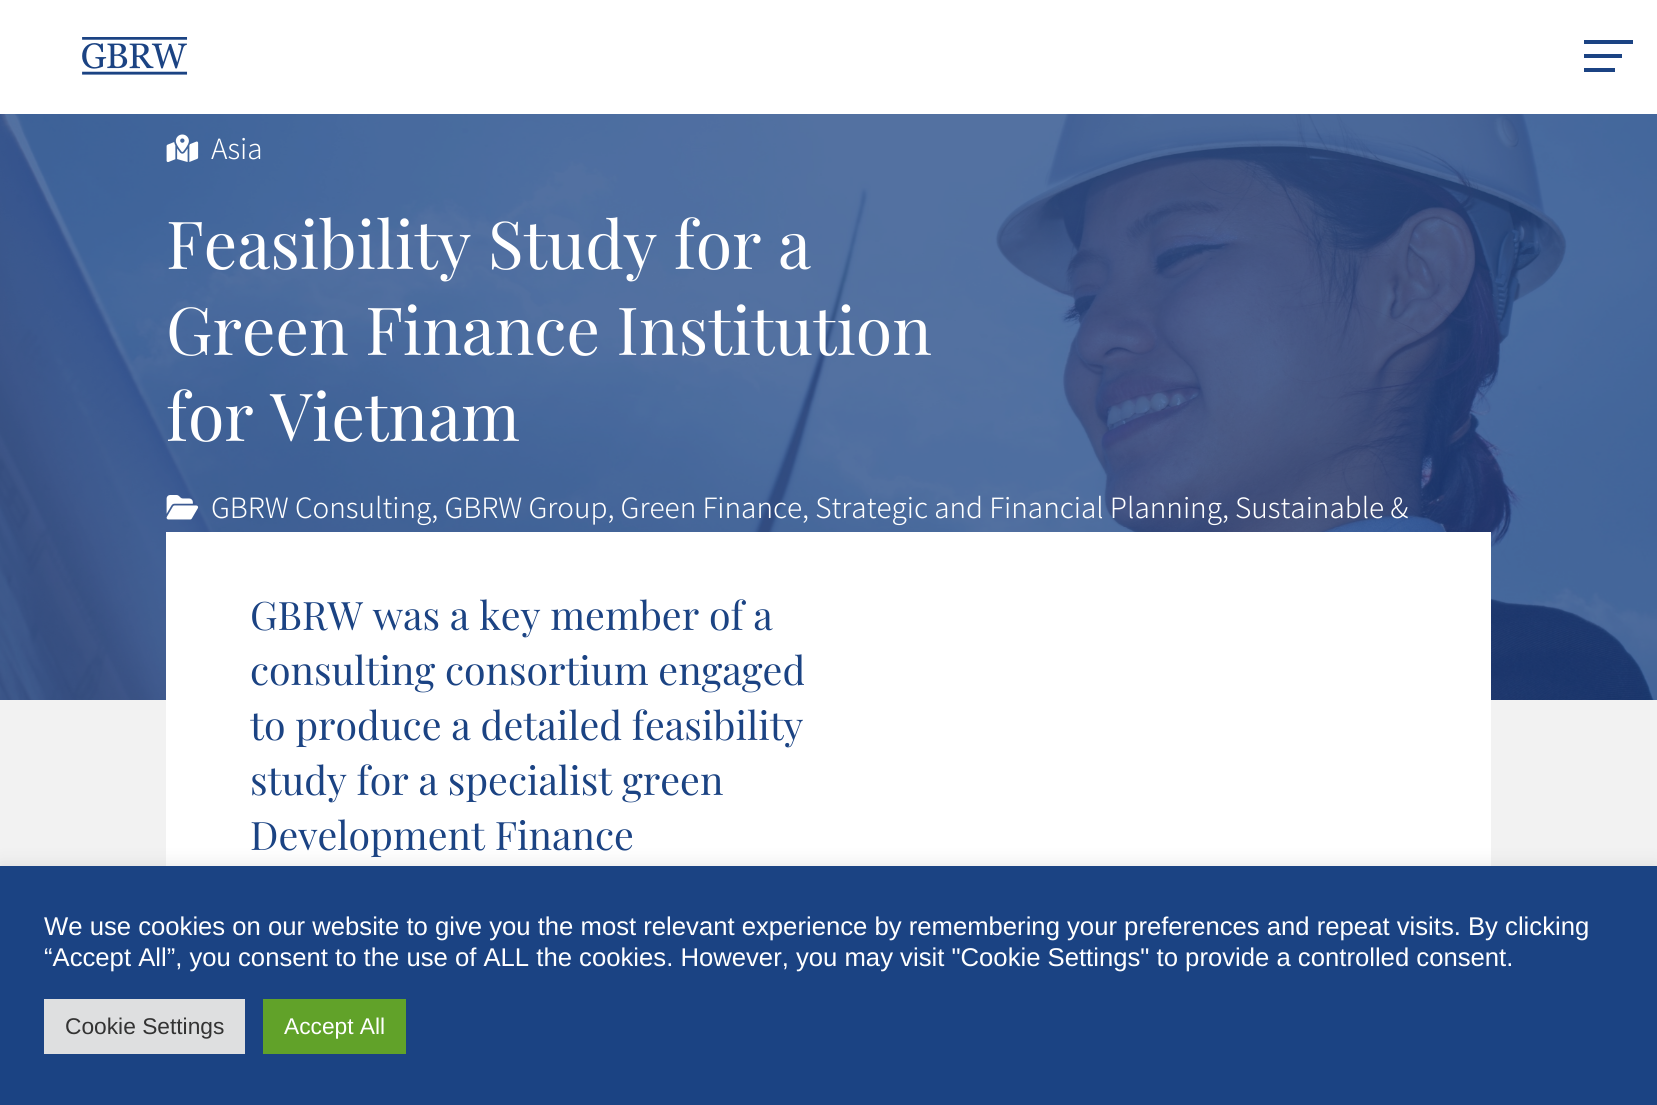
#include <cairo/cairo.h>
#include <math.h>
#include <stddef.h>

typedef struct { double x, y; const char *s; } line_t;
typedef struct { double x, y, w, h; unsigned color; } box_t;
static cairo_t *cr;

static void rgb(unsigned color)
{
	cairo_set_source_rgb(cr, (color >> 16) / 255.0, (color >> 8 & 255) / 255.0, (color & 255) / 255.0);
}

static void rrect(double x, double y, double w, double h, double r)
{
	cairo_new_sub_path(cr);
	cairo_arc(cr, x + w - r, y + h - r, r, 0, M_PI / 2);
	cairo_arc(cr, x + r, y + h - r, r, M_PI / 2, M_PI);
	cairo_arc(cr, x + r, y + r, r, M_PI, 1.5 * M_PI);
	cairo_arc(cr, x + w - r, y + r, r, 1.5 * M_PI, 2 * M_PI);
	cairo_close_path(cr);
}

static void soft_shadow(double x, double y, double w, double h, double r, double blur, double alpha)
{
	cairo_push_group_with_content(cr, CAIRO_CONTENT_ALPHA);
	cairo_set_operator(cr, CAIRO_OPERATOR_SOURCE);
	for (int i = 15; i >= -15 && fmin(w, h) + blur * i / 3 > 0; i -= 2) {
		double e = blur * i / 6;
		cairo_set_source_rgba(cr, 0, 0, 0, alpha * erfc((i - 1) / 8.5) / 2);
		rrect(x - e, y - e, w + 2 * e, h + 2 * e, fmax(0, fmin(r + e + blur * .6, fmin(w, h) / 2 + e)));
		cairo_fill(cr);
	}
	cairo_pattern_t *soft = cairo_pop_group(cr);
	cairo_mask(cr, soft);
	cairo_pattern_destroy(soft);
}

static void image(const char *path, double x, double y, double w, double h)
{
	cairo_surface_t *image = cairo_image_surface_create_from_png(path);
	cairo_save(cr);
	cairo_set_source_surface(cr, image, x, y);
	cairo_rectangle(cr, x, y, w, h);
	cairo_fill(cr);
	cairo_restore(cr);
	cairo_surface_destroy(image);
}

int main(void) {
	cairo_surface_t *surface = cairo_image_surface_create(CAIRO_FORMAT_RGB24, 1657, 1105);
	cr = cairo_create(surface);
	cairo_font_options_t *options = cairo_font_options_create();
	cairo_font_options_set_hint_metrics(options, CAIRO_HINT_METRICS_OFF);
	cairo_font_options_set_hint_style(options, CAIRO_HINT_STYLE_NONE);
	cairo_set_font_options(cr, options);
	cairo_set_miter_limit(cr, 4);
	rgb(0xf2f2f2);
	cairo_paint(cr);
	rgb(0xffffff);
	cairo_rectangle(cr, 0, 0, 1657, 114);
	cairo_fill(cr);
	image("img/1.png", 82, 37, 106, 38);
	{
		static const box_t items[] = {
			{1584, 54, 38, 4, 0x1b4383},
			{1584, 40, 49, 4, 0x1b4383},
			{1584, 68, 31, 4, 0x1b4383},
		};
		for (size_t i = 0; i < sizeof items / sizeof *items; i++) {
			rgb(items[i].color);
			cairo_rectangle(cr, items[i].x, items[i].y, items[i].w, items[i].h);
			cairo_fill(cr);
		}
	}
	image("img/2.png", 0, 114, 1657, 586);
	image("img/3.png", 166, 134, 33, 29);
	image("img/4.png", 166, 495, 33, 25);
	rgb(0xffffff);
	cairo_rectangle(cr, 166, 532, 1325, 334);
	cairo_fill(cr);
	rgb(0xacabab);
	soft_shadow(0, 865, 1657, 239, 0, 9, 0.3);
	{
		static const box_t items[] = {
			{0, 866, 1657, 239, 0x1b4383},
			{44, 999, 201, 55, 0xdedfe0},
			{263, 999, 143, 55, 0x61a229},
		};
		for (size_t i = 0; i < sizeof items / sizeof *items; i++) {
			rgb(items[i].color);
			cairo_rectangle(cr, items[i].x, items[i].y, items[i].w, items[i].h);
			cairo_fill(cr);
		}
	}
	cairo_select_font_face(cr, "Noto Sans KR Light", CAIRO_FONT_SLANT_NORMAL, CAIRO_FONT_WEIGHT_NORMAL);
	cairo_set_font_size(cr, 28);
	rgb(0xffffff);
	cairo_move_to(cr, 211, 159);
	cairo_show_text(cr, "Asia");
	cairo_select_font_face(cr, "Playfair Display", CAIRO_FONT_SLANT_NORMAL, CAIRO_FONT_WEIGHT_NORMAL);
	cairo_set_font_size(cr, 66.25);
	{
		static const line_t items[] = {
			{166, 269, "Feasibility Study for a"},
			{166, 355, "Green Finance Institution"},
			{166, 441, "for Vietnam"},
		};
		for (size_t i = 0; i < sizeof items / sizeof *items; i++) {
			cairo_move_to(cr, items[i].x, items[i].y);
			cairo_show_text(cr, items[i].s);
		}
	}
	cairo_select_font_face(cr, "Noto Sans KR Light", CAIRO_FONT_SLANT_NORMAL, CAIRO_FONT_WEIGHT_NORMAL);
	cairo_set_font_size(cr, 28);
	cairo_move_to(cr, 211, 518);
	cairo_show_text(cr, "GBRW Consulting, GBRW Group, Green Finance, Strategic and Financial Planning, Sustainable &");
	cairo_select_font_face(cr, "Playfair Display", CAIRO_FONT_SLANT_NORMAL, CAIRO_FONT_WEIGHT_NORMAL);
	cairo_set_font_size(cr, 39.25);
	rgb(0x1b4383);
	{
		static const line_t items[] = {
			{250, 630, "GBRW was a key member of a"},
			{250, 685, "consulting consortium engaged"},
			{250, 740, "to produce a detailed feasibility"},
			{250, 795, "study for a specialist green"},
			{250, 850, "Development Finance"},
		};
		for (size_t i = 0; i < sizeof items / sizeof *items; i++) {
			cairo_move_to(cr, items[i].x, items[i].y);
			cairo_show_text(cr, items[i].s);
		}
	}
	cairo_select_font_face(cr, "Liberation Sans", CAIRO_FONT_SLANT_NORMAL, CAIRO_FONT_WEIGHT_NORMAL);
	cairo_set_font_size(cr, 25.67);
	rgb(0xffffff);
	cairo_move_to(cr, 44, 935);
	cairo_show_text(cr, "We use cookies on our website to give you the most relevant experience by remembering your preferences and repeat visits. By clicking");
	cairo_move_to(cr, 44, 966);
	cairo_show_text(cr, "“Accept All”, you consent to the use of ALL the cookies. However, you may visit \"Cookie Settings\" to provide a controlled consent.");
	cairo_set_font_size(cr, 22.75);
	rgb(0x333333);
	cairo_move_to(cr, 65, 1034);
	cairo_show_text(cr, "Cookie Settings");
	rgb(0xffffff);
	cairo_move_to(cr, 284, 1034);
	cairo_show_text(cr, "Accept All");
	cairo_surface_write_to_png(surface, "page.png");
	cairo_font_options_destroy(options);
	cairo_destroy(cr);
	cairo_surface_destroy(surface);
	return 0;
}
